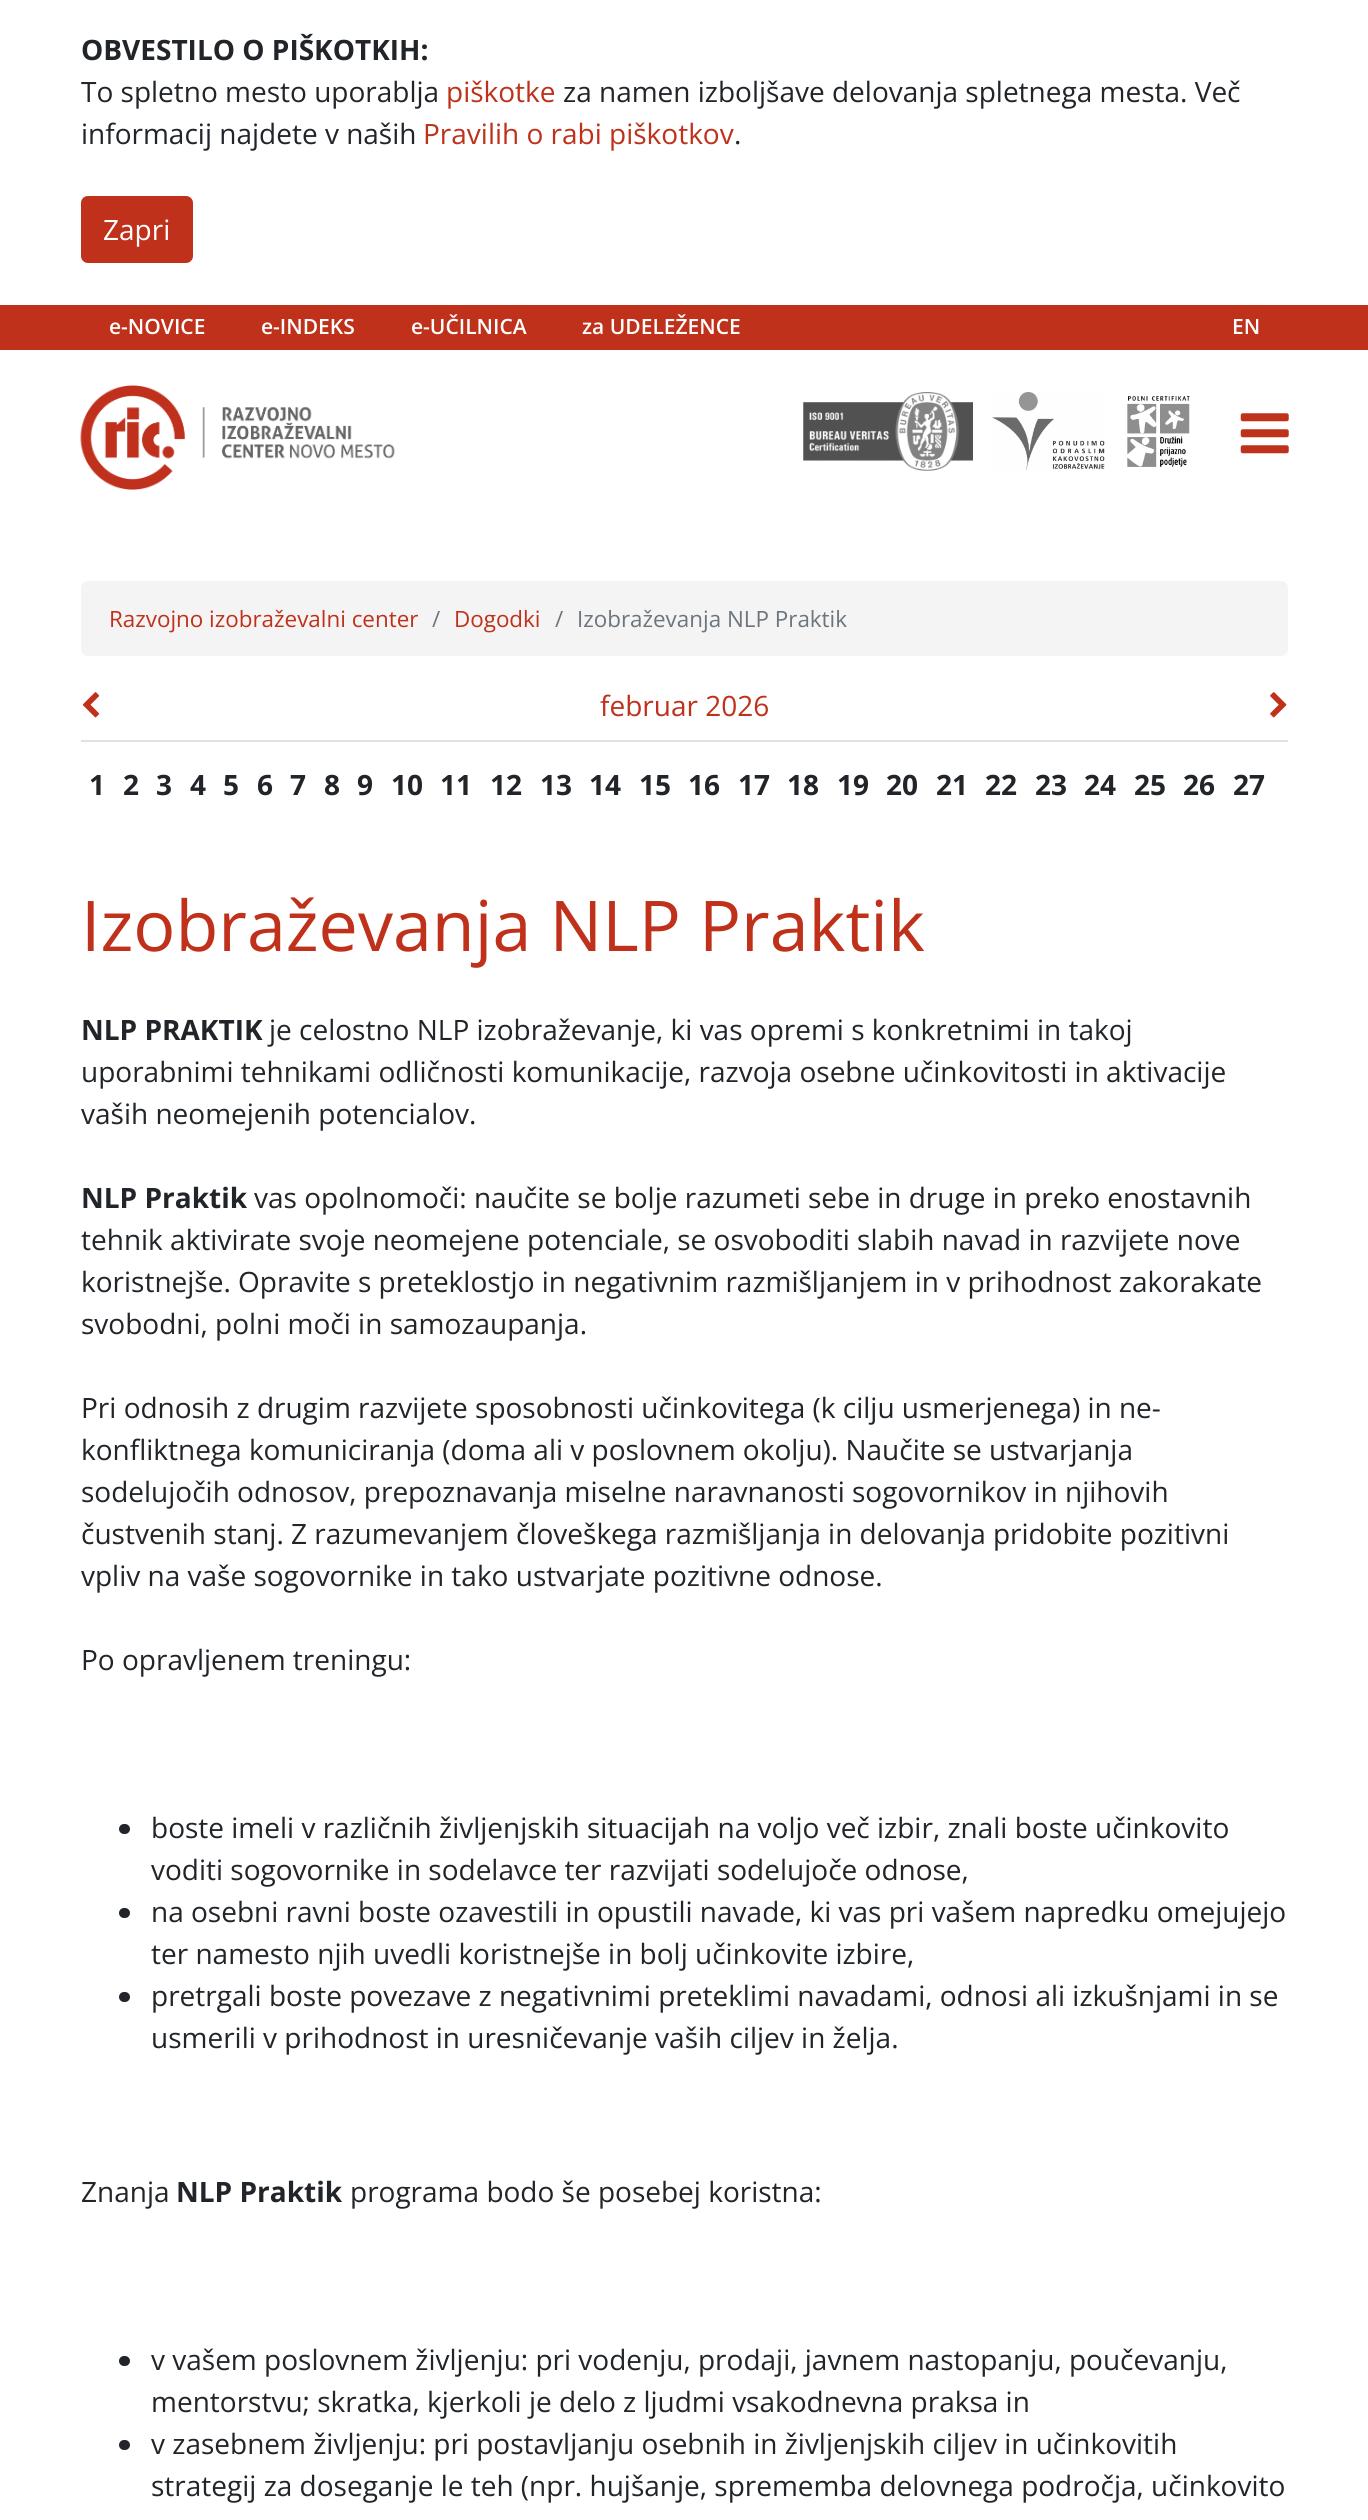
#include <cairo/cairo.h>
#include <math.h>
#include <stddef.h>

typedef struct { double x, y; const char *s; } line_t;
static cairo_t *cr;

static void rgb(unsigned color)
{
	cairo_set_source_rgb(cr, (color >> 16) / 255.0, (color >> 8 & 255) / 255.0, (color & 255) / 255.0);
}

static void rrect(double x, double y, double w, double h, double r)
{
	cairo_new_sub_path(cr);
	cairo_arc(cr, x + w - r, y + h - r, r, 0, M_PI / 2);
	cairo_arc(cr, x + r, y + h - r, r, M_PI / 2, M_PI);
	cairo_arc(cr, x + r, y + r, r, M_PI, 1.5 * M_PI);
	cairo_arc(cr, x + w - r, y + r, r, 1.5 * M_PI, 2 * M_PI);
	cairo_close_path(cr);
}

static void image(const char *path, double x, double y, double w, double h)
{
	cairo_surface_t *image = cairo_image_surface_create_from_png(path);
	cairo_save(cr);
	cairo_set_source_surface(cr, image, x, y);
	cairo_rectangle(cr, x, y, w, h);
	cairo_fill(cr);
	cairo_restore(cr);
	cairo_surface_destroy(image);
}

int main(void) {
	cairo_surface_t *surface = cairo_image_surface_create(CAIRO_FORMAT_RGB24, 1368, 2520);
	cr = cairo_create(surface);
	cairo_font_options_t *options = cairo_font_options_create();
	cairo_font_options_set_hint_metrics(options, CAIRO_HINT_METRICS_OFF);
	cairo_font_options_set_hint_style(options, CAIRO_HINT_STYLE_NONE);
	cairo_set_font_options(cr, options);
	cairo_set_miter_limit(cr, 4);
	rgb(0xffffff);
	cairo_paint(cr);
	rgb(0xbf311a);
	rrect(82, 197, 110, 65, 6);
	cairo_fill_preserve(cr);
	cairo_stroke(cr);
	cairo_rectangle(cr, 0, 305, 1368, 45);
	cairo_fill(cr);
	image("img/1.png", 80, 385, 315, 105);
	image("img/2.png", 803, 392, 170, 79);
	image("img/3.png", 992, 392, 113, 79);
	image("img/4.png", 1127, 396, 63, 71);
	image("img/5.png", 1240, 413, 49, 41);
	rgb(0xf4f4f4);
	rrect(81, 581, 1207, 75, 7);
	cairo_fill(cr);
	image("img/6.png", 82, 692, 18, 26);
	image("img/7.png", 1270, 692, 17, 26);
	rgb(0xdee2e6);
	cairo_rectangle(cr, 81, 740, 1207, 2);
	cairo_fill(cr);
	rgb(0x212529);
	rrect(119, 1824, 11, 10, 5);
	cairo_fill(cr);
	rrect(119, 1908, 11, 10, 5);
	cairo_fill(cr);
	rrect(119, 1992, 11, 10, 5);
	cairo_fill(cr);
	rrect(119, 2356, 11, 10, 5);
	cairo_fill(cr);
	rrect(119, 2440, 11, 10, 5);
	cairo_fill(cr);
	cairo_select_font_face(cr, "Open Sans", CAIRO_FONT_SLANT_NORMAL, CAIRO_FONT_WEIGHT_BOLD);
	cairo_set_font_size(cr, 28);
	cairo_move_to(cr, 81, 60);
	cairo_show_text(cr, "OBVESTILO O PIŠKOTKIH:");
	cairo_select_font_face(cr, "Open Sans", CAIRO_FONT_SLANT_NORMAL, CAIRO_FONT_WEIGHT_NORMAL);
	cairo_move_to(cr, 81, 102);
	cairo_show_text(cr, "To spletno mesto uporablja");
	rgb(0xbf311a);
	cairo_move_to(cr, 446, 102);
	cairo_show_text(cr, "piškotke");
	rgb(0x212529);
	cairo_move_to(cr, 563, 102);
	cairo_show_text(cr, "za namen izboljšave delovanja spletnega mesta. Več");
	cairo_move_to(cr, 81, 144);
	cairo_show_text(cr, "informacij najdete v naših");
	rgb(0xbf311a);
	cairo_move_to(cr, 423, 144);
	cairo_show_text(cr, "Pravilih o rabi piškotkov");
	rgb(0x212529);
	cairo_move_to(cr, 734, 144);
	cairo_show_text(cr, ".");
	rgb(0xffffff);
	cairo_move_to(cr, 103, 240);
	cairo_show_text(cr, "Zapri");
	cairo_select_font_face(cr, "Open Sans SemiBold", CAIRO_FONT_SLANT_NORMAL, CAIRO_FONT_WEIGHT_NORMAL);
	cairo_set_font_size(cr, 21);
	{
		static const line_t items[] = {
			{109, 334, "e-NOVICE"},
			{261, 334, "e-INDEKS"},
			{411, 334, "e-UČILNICA"},
			{582, 334, "za UDELEŽENCE"},
			{1232, 334, "EN"},
		};
		for (size_t i = 0; i < sizeof items / sizeof *items; i++) {
			cairo_move_to(cr, items[i].x, items[i].y);
			cairo_show_text(cr, items[i].s);
		}
	}
	cairo_select_font_face(cr, "Open Sans", CAIRO_FONT_SLANT_NORMAL, CAIRO_FONT_WEIGHT_NORMAL);
	cairo_set_font_size(cr, 22.4);
	rgb(0xbf311a);
	cairo_move_to(cr, 109, 627);
	cairo_show_text(cr, "Razvojno izobraževalni center");
	rgb(0x6c757d);
	cairo_move_to(cr, 432, 627);
	cairo_show_text(cr, "/");
	rgb(0xbf311a);
	cairo_move_to(cr, 454, 627);
	cairo_show_text(cr, "Dogodki");
	rgb(0x6c757d);
	cairo_move_to(cr, 555, 627);
	cairo_show_text(cr, "/");
	cairo_move_to(cr, 577, 627);
	cairo_show_text(cr, "Izobraževanja NLP Praktik");
	cairo_set_font_size(cr, 28);
	rgb(0xbf311a);
	cairo_move_to(cr, 600, 716);
	cairo_show_text(cr, "februar 2026");
	cairo_select_font_face(cr, "Open Sans", CAIRO_FONT_SLANT_NORMAL, CAIRO_FONT_WEIGHT_BOLD);
	rgb(0x212529);
	{
		static const line_t items[] = {
			{89, 795, "1"},
			{123, 795, "2"},
			{156, 795, "3"},
			{190, 795, "4"},
			{223, 795, "5"},
			{257, 795, "6"},
			{290, 795, "7"},
			{324, 795, "8"},
			{357, 795, "9"},
			{391, 795, "10"},
			{440, 795, "11"},
			{490, 795, "12"},
			{540, 795, "13"},
			{589, 795, "14"},
			{639, 795, "15"},
			{688, 795, "16"},
			{738, 795, "17"},
			{787, 795, "18"},
			{837, 795, "19"},
			{886, 795, "20"},
			{936, 795, "21"},
			{985, 795, "22"},
			{1035, 795, "23"},
			{1084, 795, "24"},
			{1134, 795, "25"},
			{1183, 795, "26"},
			{1233, 795, "27"},
		};
		for (size_t i = 0; i < sizeof items / sizeof *items; i++) {
			cairo_move_to(cr, items[i].x, items[i].y);
			cairo_show_text(cr, items[i].s);
		}
	}
	cairo_select_font_face(cr, "Open Sans", CAIRO_FONT_SLANT_NORMAL, CAIRO_FONT_WEIGHT_NORMAL);
	cairo_set_font_size(cr, 70);
	rgb(0xbf311a);
	cairo_move_to(cr, 81, 951);
	cairo_show_text(cr, "Izobraževanja NLP Praktik");
	cairo_select_font_face(cr, "Open Sans", CAIRO_FONT_SLANT_NORMAL, CAIRO_FONT_WEIGHT_BOLD);
	cairo_set_font_size(cr, 28);
	rgb(0x212529);
	cairo_move_to(cr, 81, 1040);
	cairo_show_text(cr, "NLP PRAKTIK");
	cairo_select_font_face(cr, "Open Sans", CAIRO_FONT_SLANT_NORMAL, CAIRO_FONT_WEIGHT_NORMAL);
	{
		static const line_t items[] = {
			{269, 1040, "je celostno NLP izobraževanje, ki vas opremi s konkretnimi in takoj"},
			{81, 1082, "uporabnimi tehnikami odličnosti komunikacije, razvoja osebne učinkovitosti in aktivacije"},
			{81, 1124, "vaših neomejenih potencialov."},
		};
		for (size_t i = 0; i < sizeof items / sizeof *items; i++) {
			cairo_move_to(cr, items[i].x, items[i].y);
			cairo_show_text(cr, items[i].s);
		}
	}
	cairo_select_font_face(cr, "Open Sans", CAIRO_FONT_SLANT_NORMAL, CAIRO_FONT_WEIGHT_BOLD);
	cairo_move_to(cr, 81, 1208);
	cairo_show_text(cr, "NLP Praktik");
	cairo_select_font_face(cr, "Open Sans", CAIRO_FONT_SLANT_NORMAL, CAIRO_FONT_WEIGHT_NORMAL);
	{
		static const line_t items[] = {
			{254, 1208, "vas opolnomoči: naučite se bolje razumeti sebe in druge in preko enostavnih"},
			{81, 1250, "tehnik aktivirate svoje neomejene potenciale, se osvoboditi slabih navad in razvijete nove"},
			{81, 1292, "koristnejše. Opravite s preteklostjo in negativnim razmišljanjem in v prihodnost zakorakate"},
			{81, 1334, "svobodni, polni moči in samozaupanja."},
			{81, 1418, "Pri odnosih z drugim razvijete sposobnosti učinkovitega (k cilju usmerjenega) in ne-"},
			{81, 1460, "konfliktnega komuniciranja (doma ali v poslovnem okolju). Naučite se ustvarjanja"},
			{81, 1502, "sodelujočih odnosov, prepoznavanja miselne naravnanosti sogovornikov in njihovih"},
			{81, 1544, "čustvenih stanj. Z razumevanjem človeškega razmišljanja in delovanja pridobite pozitivni"},
			{81, 1586, "vpliv na vaše sogovornike in tako ustvarjate pozitivne odnose."},
			{81, 1670, "Po opravljenem treningu:"},
			{151, 1838, "boste imeli v različnih življenjskih situacijah na voljo več izbir, znali boste učinkovito"},
			{151, 1880, "voditi sogovornike in sodelavce ter razvijati sodelujoče odnose,"},
			{151, 1922, "na osebni ravni boste ozavestili in opustili navade, ki vas pri vašem napredku omejujejo"},
			{151, 1964, "ter namesto njih uvedli koristnejše in bolj učinkovite izbire,"},
			{151, 2006, "pretrgali boste povezave z negativnimi preteklimi navadami, odnosi ali izkušnjami in se"},
			{151, 2048, "usmerili v prihodnost in uresničevanje vaših ciljev in želja."},
			{81, 2202, "Znanja"},
		};
		for (size_t i = 0; i < sizeof items / sizeof *items; i++) {
			cairo_move_to(cr, items[i].x, items[i].y);
			cairo_show_text(cr, items[i].s);
		}
	}
	cairo_select_font_face(cr, "Open Sans", CAIRO_FONT_SLANT_NORMAL, CAIRO_FONT_WEIGHT_BOLD);
	cairo_move_to(cr, 176, 2202);
	cairo_show_text(cr, "NLP Praktik");
	cairo_select_font_face(cr, "Open Sans", CAIRO_FONT_SLANT_NORMAL, CAIRO_FONT_WEIGHT_NORMAL);
	{
		static const line_t items[] = {
			{350, 2202, "programa bodo še posebej koristna:"},
			{151, 2370, "v vašem poslovnem življenju: pri vodenju, prodaji, javnem nastopanju, poučevanju,"},
			{151, 2412, "mentorstvu; skratka, kjerkoli je delo z ljudmi vsakodnevna praksa in"},
			{151, 2454, "v zasebnem življenju: pri postavljanju osebnih in življenjskih ciljev in učinkovitih"},
			{151, 2496, "strategij za doseganje le teh (npr. hujšanje, sprememba delovnega področja, učinkovito"},
		};
		for (size_t i = 0; i < sizeof items / sizeof *items; i++) {
			cairo_move_to(cr, items[i].x, items[i].y);
			cairo_show_text(cr, items[i].s);
		}
	}
	cairo_surface_write_to_png(surface, "page.png");
	cairo_font_options_destroy(options);
	cairo_destroy(cr);
	cairo_surface_destroy(surface);
	return 0;
}
